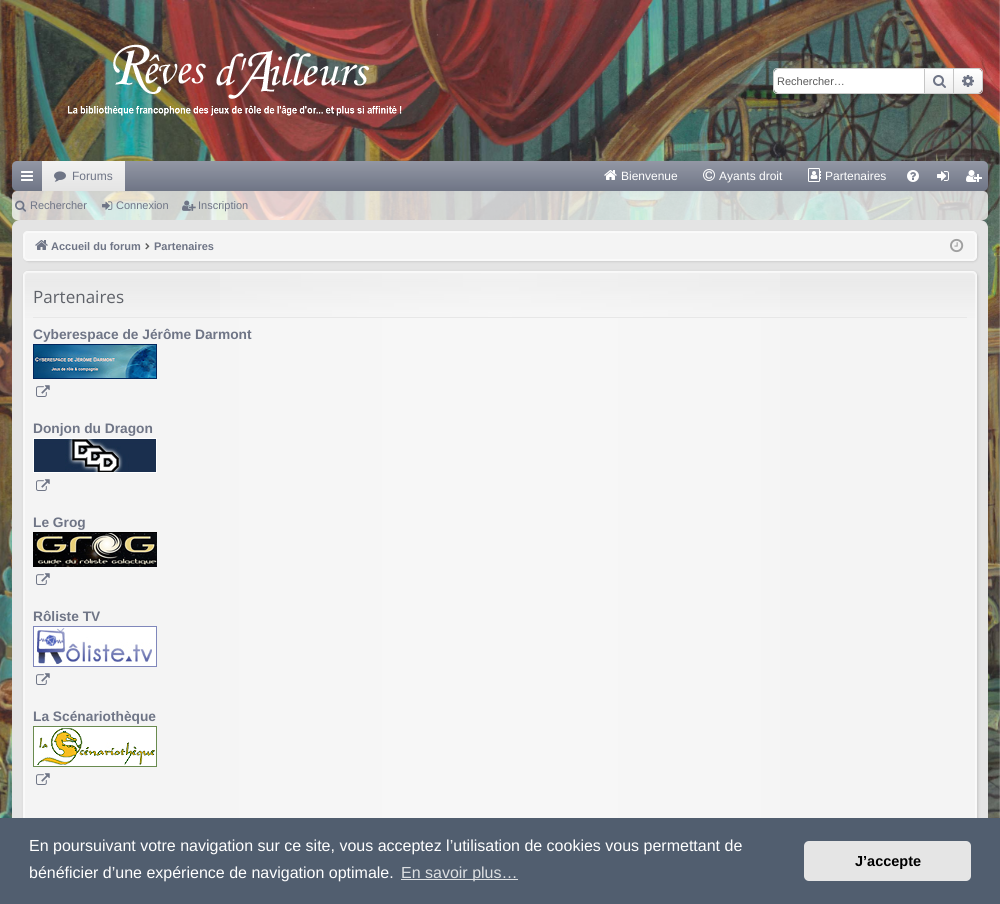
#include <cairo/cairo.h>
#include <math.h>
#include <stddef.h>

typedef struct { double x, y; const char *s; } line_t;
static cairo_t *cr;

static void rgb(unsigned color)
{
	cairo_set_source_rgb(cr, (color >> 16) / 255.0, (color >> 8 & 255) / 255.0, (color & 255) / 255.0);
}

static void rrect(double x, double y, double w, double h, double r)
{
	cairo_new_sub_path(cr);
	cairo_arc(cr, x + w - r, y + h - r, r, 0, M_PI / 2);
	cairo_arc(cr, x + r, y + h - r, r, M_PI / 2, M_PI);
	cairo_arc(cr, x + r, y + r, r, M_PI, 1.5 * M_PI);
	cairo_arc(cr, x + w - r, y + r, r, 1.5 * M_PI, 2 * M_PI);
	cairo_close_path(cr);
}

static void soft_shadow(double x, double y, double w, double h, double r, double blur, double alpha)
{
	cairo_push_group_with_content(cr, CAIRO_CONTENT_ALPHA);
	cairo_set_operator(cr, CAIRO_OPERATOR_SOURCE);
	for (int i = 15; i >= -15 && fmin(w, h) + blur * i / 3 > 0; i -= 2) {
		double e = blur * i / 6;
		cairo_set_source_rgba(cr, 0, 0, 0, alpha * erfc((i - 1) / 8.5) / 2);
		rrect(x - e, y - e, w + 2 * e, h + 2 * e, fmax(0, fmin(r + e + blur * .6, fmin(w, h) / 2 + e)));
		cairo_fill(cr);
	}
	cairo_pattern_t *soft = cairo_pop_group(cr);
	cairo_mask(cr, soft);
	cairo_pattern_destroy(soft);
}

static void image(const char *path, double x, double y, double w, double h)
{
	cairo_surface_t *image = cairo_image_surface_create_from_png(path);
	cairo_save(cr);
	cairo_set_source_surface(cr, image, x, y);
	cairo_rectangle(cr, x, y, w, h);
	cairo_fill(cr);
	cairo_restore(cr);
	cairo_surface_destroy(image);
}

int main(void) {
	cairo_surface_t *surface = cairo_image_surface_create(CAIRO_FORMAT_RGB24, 1000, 904);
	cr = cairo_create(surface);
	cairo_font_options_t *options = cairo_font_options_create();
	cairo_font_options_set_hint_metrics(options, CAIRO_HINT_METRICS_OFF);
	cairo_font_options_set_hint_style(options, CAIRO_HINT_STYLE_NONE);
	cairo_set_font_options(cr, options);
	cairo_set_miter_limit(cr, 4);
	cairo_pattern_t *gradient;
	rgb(0xffffff);
	cairo_paint(cr);
	image("img/1.png", 0, 0, 1000, 818);
	image("img/2.png", 68, 44, 334, 72);
	rgb(0x000000);
	soft_shadow(774, 69, 210, 26, 4, 1.5, 0.1);
	rrect(773.5, 68.5, 209, 25, 3.5);
	rgb(0xcccccc);
	cairo_set_line_width(cr, 1);
	cairo_stroke(cr);
	rgb(0xffffff);
	cairo_new_path(cr);
	cairo_move_to(cr, 778, 69);
	cairo_line_to(cr, 924, 69);
	cairo_line_to(cr, 924, 93);
	cairo_line_to(cr, 778, 93);
	cairo_curve_to(cr, 776, 93, 774, 91, 774, 89);
	cairo_line_to(cr, 774, 73);
	cairo_curve_to(cr, 774, 71, 776, 69, 778, 69);
	cairo_close_path(cr);
	cairo_fill(cr);
	gradient = cairo_pattern_create_linear(939, 69, 939, 93);
	cairo_pattern_add_color_stop_rgba(gradient, 0, 1, 1, 1, 1);
	cairo_pattern_add_color_stop_rgba(gradient, 1, 0.933, 0.933, 0.933, 1);
	cairo_set_source(cr, gradient);
	cairo_pattern_destroy(gradient);
	cairo_rectangle(cr, 925, 69, 28, 24);
	cairo_fill(cr);
	rgb(0xc6c6c6);
	cairo_rectangle(cr, 953, 69, 1, 24);
	cairo_fill(cr);
	cairo_rectangle(cr, 924, 69, 1, 24);
	cairo_fill(cr);
	image("img/3.png", 933, 75, 13, 13);
	rgb(0xeeeeee);
	cairo_new_path(cr);
	cairo_move_to(cr, 954, 69);
	cairo_line_to(cr, 978, 69);
	cairo_curve_to(cr, 980, 69, 982, 71, 982, 73);
	cairo_line_to(cr, 982, 89);
	cairo_curve_to(cr, 982, 91, 980, 93, 978, 93);
	cairo_line_to(cr, 954, 93);
	cairo_close_path(cr);
	cairo_fill(cr);
	gradient = cairo_pattern_create_linear(968, 69, 968, 93);
	cairo_pattern_add_color_stop_rgba(gradient, 0, 1, 1, 1, 1);
	cairo_pattern_add_color_stop_rgba(gradient, 1, 1, 1, 1, 0);
	cairo_set_source(cr, gradient);
	cairo_pattern_destroy(gradient);
	cairo_new_path(cr);
	cairo_move_to(cr, 954, 69);
	cairo_line_to(cr, 978, 69);
	cairo_curve_to(cr, 980, 69, 982, 71, 982, 73);
	cairo_line_to(cr, 982, 89);
	cairo_curve_to(cr, 982, 91, 980, 93, 978, 93);
	cairo_line_to(cr, 954, 93);
	cairo_close_path(cr);
	cairo_fill(cr);
	image("img/4.png", 962, 75, 12, 12);
	rgb(0x000000);
	soft_shadow(17, 171, 966, 20, 0, 2.5, 0.2);
	rgb(0x6f7586);
	rrect(12, 161, 976, 30, 5);
	cairo_fill(cr);
	gradient = cairo_pattern_create_linear(500, 161, 500, 191);
	cairo_pattern_add_color_stop_rgba(gradient, 0, 1, 1, 1, 0.25);
	cairo_pattern_add_color_stop_rgba(gradient, 1, 1, 1, 1, 0);
	cairo_set_source(cr, gradient);
	cairo_pattern_destroy(gradient);
	rrect(12, 161, 976, 30, 5);
	cairo_fill(cr);
	image("img/5.png", 21, 171, 12, 10);
	gradient = cairo_pattern_create_linear(84, 161, 84, 191);
	cairo_pattern_add_color_stop_rgba(gradient, 0, 0.949, 0.949, 0.949, 1);
	cairo_pattern_add_color_stop_rgba(gradient, 1, 0.894, 0.894, 0.894, 1);
	cairo_set_source(cr, gradient);
	cairo_pattern_destroy(gradient);
	cairo_rectangle(cr, 42, 161, 83, 30);
	cairo_fill(cr);
	image("img/6.png", 54, 171, 12, 11);
	image("img/7.png", 604, 170, 13, 10);
	image("img/8.png", 703, 169, 12, 12);
	image("img/9.png", 808, 168, 13, 14);
	image("img/10.png", 907, 170, 12, 12);
	image("img/11.png", 937, 171, 12, 10);
	image("img/12.png", 966, 170, 16, 12);
	cairo_set_source_rgba(cr, 1, 1, 1, 0.75);
	rrect(12, 191, 976, 29, 5);
	cairo_fill(cr);
	image("img/13.png", 15, 200, 12, 12);
	image("img/14.png", 102, 201, 11, 9);
	image("img/15.png", 182, 200, 14, 11);
	rgb(0xe4e4e4);
	rrect(12.5, 220.5, 975, 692, 7.5);
	cairo_fill_preserve(cr);
	cairo_stroke(cr);
	rgb(0x000000);
	soft_shadow(24, 232, 954, 30, 5, 1, 0.1);
	rgb(0xf4f4f4);
	rrect(23, 231, 954, 30, 5);
	cairo_fill(cr);
	rrect(24.5, 232.5, 951, 27, 3.5);
	rgb(0xfafafa);
	cairo_stroke(cr);
	rrect(23.5, 231.5, 953, 29, 4.5);
	rgb(0xf9f9f9);
	cairo_stroke(cr);
	image("img/16.png", 35, 240, 13, 10);
	image("img/17.png", 145, 243, 5, 7);
	image("img/18.png", 950, 238, 14, 15);
	rgb(0x000000);
	soft_shadow(24, 272, 954, 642, 5, 1.5, 0.15);
	rgb(0xf4f4f4);
	rrect(23, 271, 954, 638, 5);
	cairo_fill(cr);
	cairo_save(cr);
	rrect(23, 271, 954, 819, 5);
	cairo_clip(cr);
	gradient = cairo_pattern_create_linear(500, 272, 500, 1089);
	cairo_pattern_add_color_stop_rgba(gradient, 0, 0.8, 0.8, 0.8, 0.2);
	cairo_pattern_add_color_stop_rgba(gradient, 0.01, 0.8, 0.8, 0.8, 0.25);
	cairo_pattern_add_color_stop_rgba(gradient, 0.06, 0.8, 0.8, 0.8, 0);
	cairo_set_source(cr, gradient);
	cairo_pattern_destroy(gradient);
	cairo_rectangle(cr, 23, 272, 954, 46);
	cairo_fill(cr);
	cairo_restore(cr);
	gradient = cairo_pattern_create_linear(24, 681, 976, 681);
	cairo_pattern_add_color_stop_rgba(gradient, 0, 1, 1, 1, 0);
	cairo_pattern_add_color_stop_rgba(gradient, 0.5, 1, 1, 1, 0.3);
	cairo_pattern_add_color_stop_rgba(gradient, 1, 1, 1, 1, 0);
	cairo_set_source(cr, gradient);
	cairo_pattern_destroy(gradient);
	cairo_rectangle(cr, 220, 272, 560, 546);
	cairo_fill(cr);
	rrect(24.5, 272.5, 951, 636, 3.5);
	cairo_set_source_rgba(cr, 1, 1, 1, 0.5);
	cairo_stroke(cr);
	rrect(23.5, 271.5, 953, 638, 4.5);
	rgb(0xf9f9f9);
	cairo_stroke(cr);
	rgb(0xe7e7e7);
	cairo_rectangle(cr, 33, 317, 934, 1);
	cairo_fill(cr);
	image("img/19.png", 33, 344, 124, 35);
	image("img/20.png", 36, 385, 14, 12);
	image("img/21.png", 33, 438, 124, 35);
	image("img/20.png", 36, 479, 14, 12);
	image("img/22.png", 33, 532, 124, 35);
	image("img/20.png", 36, 573, 14, 12);
	image("img/23.png", 33, 626, 124, 41);
	image("img/20.png", 36, 673, 14, 12);
	image("img/24.png", 33, 726, 124, 41);
	image("img/20.png", 36, 773, 14, 12);
	rgb(0x515e6f);
	cairo_rectangle(cr, 0, 818, 1000, 86);
	cairo_fill(cr);
	rgb(0xdcdfe2);
	cairo_rectangle(cr, 401, 879, 117, 1);
	cairo_fill(cr);
	rgb(0xe5e5e5);
	rrect(804, 841, 167, 40, 5);
	cairo_fill(cr);
	cairo_select_font_face(cr, "Liberation Sans", CAIRO_FONT_SLANT_NORMAL, CAIRO_FONT_WEIGHT_NORMAL);
	cairo_set_font_size(cr, 11);
	rgb(0x5b5b5b);
	cairo_move_to(cr, 777, 85);
	cairo_show_text(cr, "Rechercher…");
	cairo_set_font_size(cr, 12);
	rgb(0x6f7586);
	cairo_move_to(cr, 72, 180);
	cairo_show_text(cr, "Forums");
	rgb(0xffffff);
	{
		static const line_t items[] = {
			{621, 180, "Bienvenue"},
			{719, 180, "Ayants droit"},
			{825, 180, "Partenaires"},
		};
		for (size_t i = 0; i < sizeof items / sizeof *items; i++) {
			cairo_move_to(cr, items[i].x, items[i].y);
			cairo_show_text(cr, items[i].s);
		}
	}
	cairo_set_font_size(cr, 11);
	rgb(0x6f7586);
	{
		static const line_t items[] = {
			{30, 209, "Rechercher"},
			{116, 209, "Connexion"},
			{198, 209, "Inscription"},
		};
		for (size_t i = 0; i < sizeof items / sizeof *items; i++) {
			cairo_move_to(cr, items[i].x, items[i].y);
			cairo_show_text(cr, items[i].s);
		}
	}
	cairo_select_font_face(cr, "Liberation Sans", CAIRO_FONT_SLANT_NORMAL, CAIRO_FONT_WEIGHT_BOLD);
	cairo_move_to(cr, 51, 250);
	cairo_show_text(cr, "Accueil du forum");
	cairo_move_to(cr, 154, 250);
	cairo_show_text(cr, "Partenaires");
	cairo_select_font_face(cr, "Open Sans", CAIRO_FONT_SLANT_NORMAL, CAIRO_FONT_WEIGHT_NORMAL);
	cairo_set_font_size(cr, 17);
	rgb(0x5f6269);
	cairo_move_to(cr, 33, 303);
	cairo_show_text(cr, "Partenaires");
	cairo_select_font_face(cr, "Liberation Sans", CAIRO_FONT_SLANT_NORMAL, CAIRO_FONT_WEIGHT_BOLD);
	cairo_set_font_size(cr, 13.75);
	rgb(0x6f7586);
	{
		static const line_t items[] = {
			{33, 339, "Cyberespace de Jérôme Darmont"},
			{33, 433, "Donjon du Dragon"},
			{33, 527, "Le Grog"},
			{33, 621, "Rôliste TV"},
			{33, 721, "La Scénariothèque"},
		};
		for (size_t i = 0; i < sizeof items / sizeof *items; i++) {
			cairo_move_to(cr, items[i].x, items[i].y);
			cairo_show_text(cr, items[i].s);
		}
	}
	cairo_select_font_face(cr, "Liberation Sans", CAIRO_FONT_SLANT_NORMAL, CAIRO_FONT_WEIGHT_NORMAL);
	cairo_set_font_size(cr, 16);
	rgb(0xffffff);
	cairo_move_to(cr, 29, 851);
	cairo_show_text(cr, "En poursuivant votre navigation sur ce site, vous acceptez l’utilisation de cookies vous permettant de");
	cairo_move_to(cr, 29, 878);
	cairo_show_text(cr, "bénéficier d’une expérience de navigation optimale.");
	rgb(0xdcdfe2);
	cairo_move_to(cr, 401, 878);
	cairo_show_text(cr, "En savoir plus…");
	cairo_select_font_face(cr, "Liberation Sans", CAIRO_FONT_SLANT_NORMAL, CAIRO_FONT_WEIGHT_BOLD);
	cairo_set_font_size(cr, 14.5);
	rgb(0x000000);
	cairo_move_to(cr, 855, 866);
	cairo_show_text(cr, "J’accepte");
	cairo_surface_write_to_png(surface, "page.png");
	cairo_font_options_destroy(options);
	cairo_destroy(cr);
	cairo_surface_destroy(surface);
	return 0;
}
